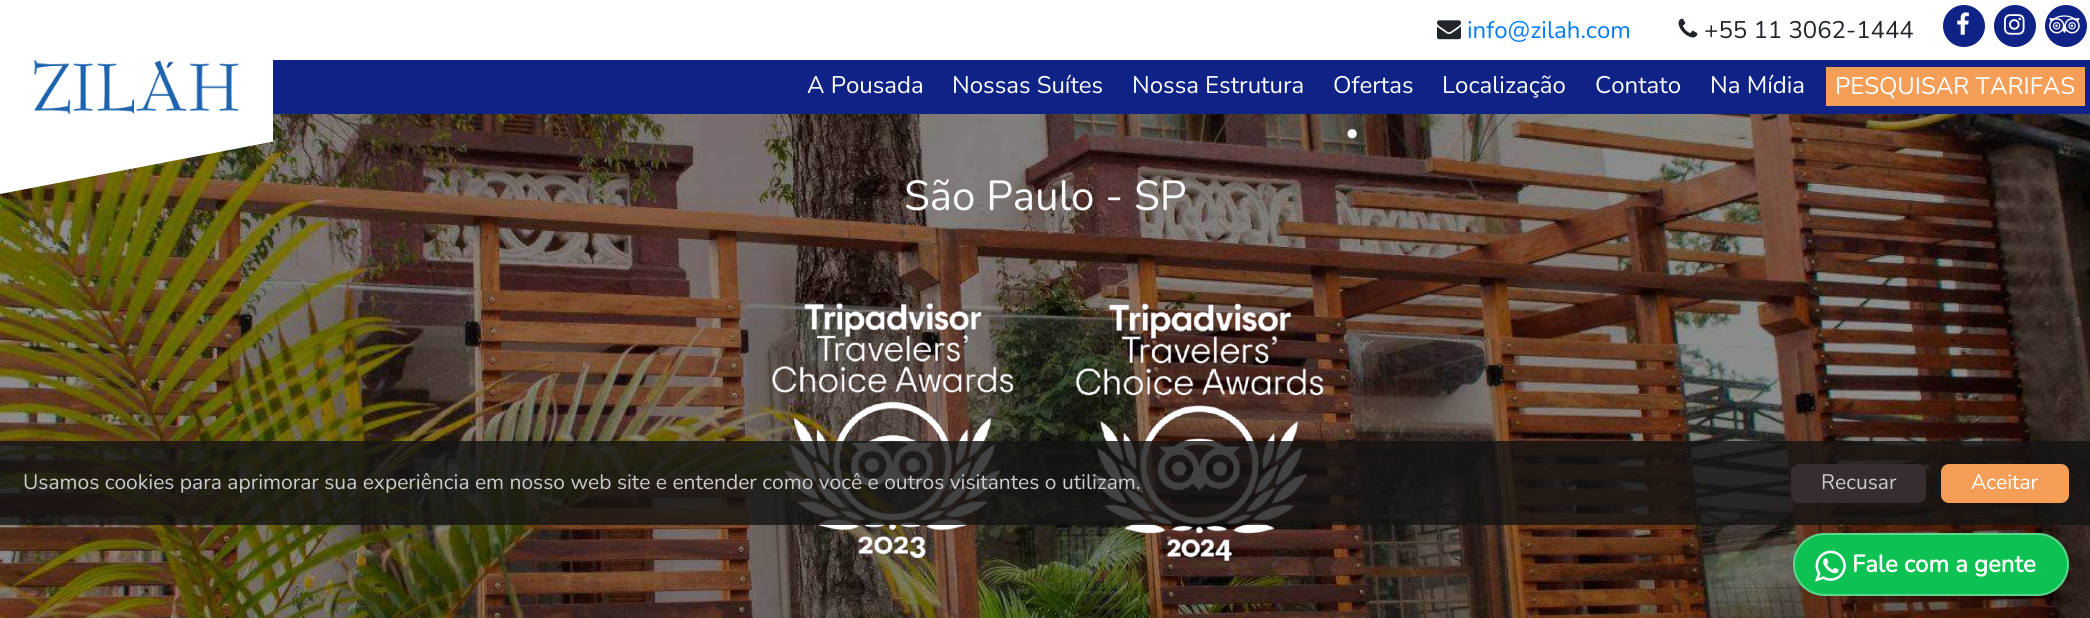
#include <cairo/cairo.h>
#include <math.h>
#include <stddef.h>

typedef struct { double x, y; const char *s; } line_t;
static cairo_t *cr;

static void rgb(unsigned color)
{
	cairo_set_source_rgb(cr, (color >> 16) / 255.0, (color >> 8 & 255) / 255.0, (color & 255) / 255.0);
}

static void rrect(double x, double y, double w, double h, double r)
{
	cairo_new_sub_path(cr);
	cairo_arc(cr, x + w - r, y + h - r, r, 0, M_PI / 2);
	cairo_arc(cr, x + r, y + h - r, r, M_PI / 2, M_PI);
	cairo_arc(cr, x + r, y + r, r, M_PI, 1.5 * M_PI);
	cairo_arc(cr, x + w - r, y + r, r, 1.5 * M_PI, 2 * M_PI);
	cairo_close_path(cr);
}

static void image(const char *path, double x, double y, double w, double h)
{
	cairo_surface_t *image = cairo_image_surface_create_from_png(path);
	cairo_save(cr);
	cairo_set_source_surface(cr, image, x, y);
	cairo_rectangle(cr, x, y, w, h);
	cairo_fill(cr);
	cairo_restore(cr);
	cairo_surface_destroy(image);
}

int main(void) {
	cairo_surface_t *surface = cairo_image_surface_create(CAIRO_FORMAT_RGB24, 2090, 618);
	cr = cairo_create(surface);
	cairo_font_options_t *options = cairo_font_options_create();
	cairo_font_options_set_hint_metrics(options, CAIRO_HINT_METRICS_OFF);
	cairo_font_options_set_hint_style(options, CAIRO_HINT_STYLE_NONE);
	cairo_set_font_options(cr, options);
	cairo_set_miter_limit(cr, 4);
	rgb(0xffffff);
	cairo_paint(cr);
	image("img/1.png", 1437, 20, 24, 20);
	image("img/2.png", 1678, 18, 20, 20);
	rgb(0x0f2386);
	cairo_arc(cr, 1964, 26, 21, 0, 2 * M_PI);
	cairo_fill(cr);
	image("img/3.png", 1957, 12, 12, 23);
	cairo_arc(cr, 2015, 26, 21, 0, 2 * M_PI);
	cairo_fill(cr);
	image("img/4.png", 2004, 14, 21, 21);
	cairo_arc(cr, 2066, 26, 21, 0, 2 * M_PI);
	cairo_fill(cr);
	image("img/5.png", 2049, 15, 31, 19);
	cairo_rectangle(cr, 273, 60, 1817, 54);
	cairo_fill(cr);
	image("img/7.png", 0, 114, 2090, 504);
	rgb(0xffffff);
	cairo_rectangle(cr, 0, 114, 273, 27);
	cairo_fill(cr);
	image("img/6.png", 34, 60, 205, 54);
	cairo_new_path(cr);
	cairo_move_to(cr, 0, 141);
	cairo_line_to(cr, 276, 141);
	cairo_line_to(cr, 0, 194);
	cairo_close_path(cr);
	cairo_fill(cr);
	rgb(0xf59e57);
	cairo_rectangle(cr, 1826, 67, 259, 39);
	cairo_fill(cr);
	image("img/8.png", 772, 303, 552, 259);
	rgb(0x0dc153);
	rrect(1793, 533, 276, 63, 31.5);
	cairo_fill(cr);
	rrect(1794, 534, 274, 61, 30.5);
	cairo_set_source_rgba(cr, 1, 1, 1, 0.33);
	cairo_stroke(cr);
	image("img/9.png", 1815, 550, 31, 32);
	cairo_set_source_rgba(cr, 0.078, 0.078, 0.078, 0.8);
	cairo_rectangle(cr, 0, 441, 2090, 84);
	cairo_fill(cr);
	rgb(0x362e2e);
	rrect(1791, 464, 135, 39, 8);
	cairo_fill(cr);
	rgb(0xf59e57);
	rrect(1941, 464, 128, 39, 8);
	cairo_fill(cr);
	cairo_select_font_face(cr, "Nunito ExtraLight", CAIRO_FONT_SLANT_NORMAL, CAIRO_FONT_WEIGHT_NORMAL);
	cairo_set_font_size(cr, 24);
	rgb(0x007bff);
	cairo_move_to(cr, 1467, 38);
	cairo_show_text(cr, "info@zilah.com");
	rgb(0x212529);
	cairo_move_to(cr, 1704, 38);
	cairo_show_text(cr, "+55 11 3062-1444");
	rgb(0xffffff);
	{
		static const line_t items[] = {
			{807, 93, "A Pousada"},
			{952, 93, "Nossas Suítes"},
			{1132, 93, "Nossa Estrutura"},
			{1333, 93, "Ofertas"},
			{1442, 93, "Localização"},
			{1595, 93, "Contato"},
			{1710, 93, "Na Mídia"},
			{1835, 94, "PESQUISAR TARIFAS"},
		};
		for (size_t i = 0; i < sizeof items / sizeof *items; i++) {
			cairo_move_to(cr, items[i].x, items[i].y);
			cairo_show_text(cr, items[i].s);
		}
	}
	cairo_select_font_face(cr, "Cinzel", CAIRO_FONT_SLANT_NORMAL, CAIRO_FONT_WEIGHT_BOLD);
	cairo_set_font_size(cr, 78);
	rgb(0xf8f9fa);
	cairo_move_to(cr, 1344, 138);
	cairo_show_text(cr, ".");
	cairo_select_font_face(cr, "Nunito ExtraLight", CAIRO_FONT_SLANT_NORMAL, CAIRO_FONT_WEIGHT_NORMAL);
	cairo_set_font_size(cr, 42);
	cairo_move_to(cr, 904, 210);
	cairo_show_text(cr, "São Paulo - SP");
	cairo_select_font_face(cr, "Nunito", CAIRO_FONT_SLANT_NORMAL, CAIRO_FONT_WEIGHT_BOLD);
	cairo_set_font_size(cr, 24);
	rgb(0xffffff);
	cairo_move_to(cr, 1852, 572);
	cairo_show_text(cr, "Fale com a gente");
	cairo_select_font_face(cr, "Nunito ExtraLight", CAIRO_FONT_SLANT_NORMAL, CAIRO_FONT_WEIGHT_NORMAL);
	cairo_set_font_size(cr, 21);
	rgb(0xcccccc);
	cairo_move_to(cr, 23, 489);
	cairo_show_text(cr, "Usamos cookies para aprimorar sua experiência em nosso web site e entender como você e outros visitantes o utilizam.");
	cairo_move_to(cr, 1821, 489);
	cairo_show_text(cr, "Recusar");
	rgb(0xffffff);
	cairo_move_to(cr, 1971, 489);
	cairo_show_text(cr, "Aceitar");
	cairo_surface_write_to_png(surface, "page.png");
	cairo_font_options_destroy(options);
	cairo_destroy(cr);
	cairo_surface_destroy(surface);
	return 0;
}
